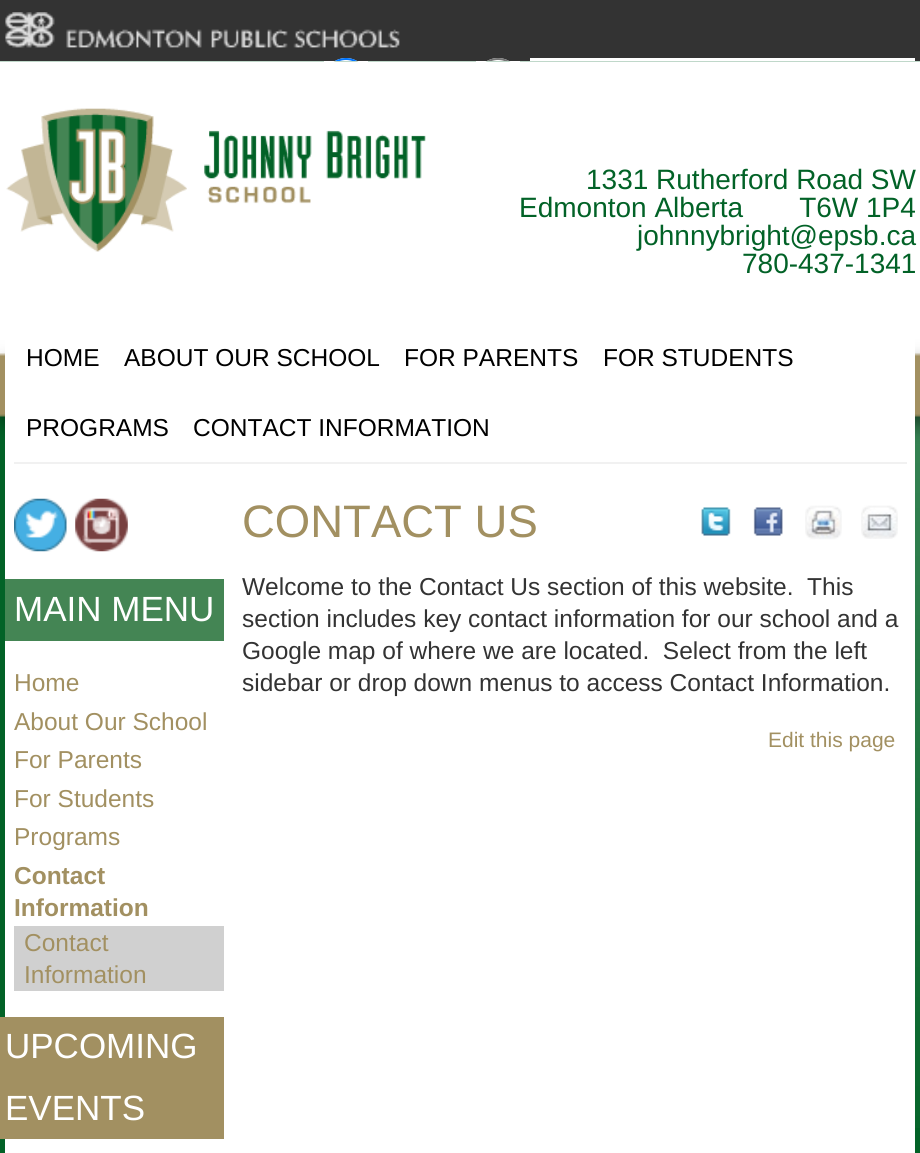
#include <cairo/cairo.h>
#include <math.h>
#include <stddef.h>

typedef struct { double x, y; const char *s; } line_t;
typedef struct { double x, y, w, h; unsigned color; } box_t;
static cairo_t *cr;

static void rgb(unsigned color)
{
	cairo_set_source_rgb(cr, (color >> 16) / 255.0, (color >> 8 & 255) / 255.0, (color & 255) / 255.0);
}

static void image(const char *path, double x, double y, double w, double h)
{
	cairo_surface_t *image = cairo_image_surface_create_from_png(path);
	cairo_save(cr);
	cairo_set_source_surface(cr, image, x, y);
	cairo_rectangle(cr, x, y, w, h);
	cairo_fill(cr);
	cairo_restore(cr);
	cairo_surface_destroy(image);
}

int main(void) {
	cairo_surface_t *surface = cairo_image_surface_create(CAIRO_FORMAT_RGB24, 920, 1153);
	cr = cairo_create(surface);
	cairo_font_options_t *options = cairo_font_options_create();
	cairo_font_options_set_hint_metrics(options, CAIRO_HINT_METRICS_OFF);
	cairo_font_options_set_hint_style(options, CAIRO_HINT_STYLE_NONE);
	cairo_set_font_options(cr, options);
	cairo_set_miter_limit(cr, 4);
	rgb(0x026227);
	cairo_paint(cr);
	rgb(0x333333);
	cairo_rectangle(cr, 0, 0, 920, 61);
	cairo_fill(cr);
	image("img/1.png", 0, 61, 920, 1067);
	image("img/2.png", 5, 12, 395, 36);
	rgb(0xffffff);
	cairo_new_path(cr);
	cairo_move_to(cr, 346, 58);
	cairo_curve_to(cr, 358, 58, 368, 68, 368, 80);
	cairo_line_to(cr, 368, 61);
	cairo_line_to(cr, 324, 61);
	cairo_line_to(cr, 324, 80);
	cairo_curve_to(cr, 324, 68, 334, 58, 346, 58);
	cairo_close_path(cr);
	cairo_fill(cr);
	cairo_save(cr);
	cairo_rectangle(cr, 5, 0, 910, 61);
	cairo_clip(cr);
	cairo_arc(cr, 346, 80, 21, 0, 2 * M_PI);
	rgb(0x0075ff);
	cairo_stroke(cr);
	cairo_restore(cr);
	cairo_new_path(cr);
	cairo_move_to(cr, 498, 58);
	cairo_curve_to(cr, 510, 58, 520, 68, 520, 80);
	cairo_line_to(cr, 520, 61);
	cairo_line_to(cr, 476, 61);
	cairo_line_to(cr, 476, 80);
	cairo_curve_to(cr, 476, 68, 486, 58, 498, 58);
	cairo_close_path(cr);
	cairo_fill(cr);
	cairo_save(cr);
	cairo_rectangle(cr, 5, 0, 910, 61);
	cairo_clip(cr);
	cairo_arc(cr, 498, 80, 21, 0, 2 * M_PI);
	rgb(0x767676);
	cairo_stroke(cr);
	cairo_restore(cr);
	cairo_rectangle(cr, 530, 58, 385, 3);
	cairo_fill(cr);
	image("img/3.png", 6, 108, 420, 144);
	cairo_new_path(cr);
	cairo_move_to(cr, 14, 322);
	cairo_line_to(cr, 906, 322);
	cairo_curve_to(cr, 911, 322, 915, 326, 915, 331);
	cairo_line_to(cr, 915, 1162);
	cairo_line_to(cr, 5, 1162);
	cairo_line_to(cr, 5, 331);
	cairo_curve_to(cr, 5, 326, 9, 322, 14, 322);
	cairo_close_path(cr);
	cairo_fill(cr);
	rgb(0xf1f1f1);
	cairo_rectangle(cr, 14, 462, 893, 2);
	cairo_fill(cr);
	image("img/4.png", 14, 498, 53, 54);
	image("img/5.png", 75, 498, 53, 54);
	{
		static const box_t items[] = {
			{5, 579, 219, 62, 0x448554},
			{14, 926, 210, 65, 0xd0d0d0},
			{0, 1017, 224, 122, 0xa29061},
		};
		for (size_t i = 0; i < sizeof items / sizeof *items; i++) {
			rgb(items[i].color);
			cairo_rectangle(cr, items[i].x, items[i].y, items[i].w, items[i].h);
			cairo_fill(cr);
		}
	}
	image("img/6.png", 701, 507, 30, 29);
	image("img/7.png", 753, 507, 30, 29);
	image("img/8.png", 805, 505, 37, 35);
	image("img/9.png", 861, 505, 37, 34);
	cairo_select_font_face(cr, "Liberation Sans", CAIRO_FONT_SLANT_NORMAL, CAIRO_FONT_WEIGHT_NORMAL);
	cairo_set_font_size(cr, 28);
	rgb(0x026227);
	{
		static const line_t items[] = {
			{586, 189, "1331 Rutherford Road SW"},
			{519, 217, "Edmonton Alberta  T6W 1P4"},
			{637, 245, "johnnybright@epsb.ca"},
			{742, 273, "780-437-1341"},
		};
		for (size_t i = 0; i < sizeof items / sizeof *items; i++) {
			cairo_move_to(cr, items[i].x, items[i].y);
			cairo_show_text(cr, items[i].s);
		}
	}
	cairo_set_font_size(cr, 24.5);
	rgb(0x000000);
	{
		static const line_t items[] = {
			{26, 366, "HOME"},
			{124, 366, "ABOUT OUR SCHOOL"},
			{404, 366, "FOR PARENTS"},
			{603, 366, "FOR STUDENTS"},
			{26, 436, "PROGRAMS"},
			{193, 436, "CONTACT INFORMATION"},
		};
		for (size_t i = 0; i < sizeof items / sizeof *items; i++) {
			cairo_move_to(cr, items[i].x, items[i].y);
			cairo_show_text(cr, items[i].s);
		}
	}
	cairo_set_font_size(cr, 35);
	rgb(0xffffff);
	cairo_move_to(cr, 14, 621);
	cairo_show_text(cr, "MAIN MENU");
	cairo_set_font_size(cr, 24.5);
	rgb(0xa29061);
	{
		static const line_t items[] = {
			{14, 691, "Home"},
			{14, 730, "About Our School"},
			{14, 768, "For Parents"},
			{14, 807, "For Students"},
			{14, 845, "Programs"},
		};
		for (size_t i = 0; i < sizeof items / sizeof *items; i++) {
			cairo_move_to(cr, items[i].x, items[i].y);
			cairo_show_text(cr, items[i].s);
		}
	}
	cairo_select_font_face(cr, "Liberation Sans", CAIRO_FONT_SLANT_NORMAL, CAIRO_FONT_WEIGHT_BOLD);
	cairo_move_to(cr, 14, 884);
	cairo_show_text(cr, "Contact");
	cairo_move_to(cr, 14, 916);
	cairo_show_text(cr, "Information");
	cairo_select_font_face(cr, "Liberation Sans", CAIRO_FONT_SLANT_NORMAL, CAIRO_FONT_WEIGHT_NORMAL);
	cairo_move_to(cr, 24, 951);
	cairo_show_text(cr, "Contact");
	cairo_move_to(cr, 24, 983);
	cairo_show_text(cr, "Information");
	cairo_set_font_size(cr, 35);
	rgb(0xffffff);
	cairo_move_to(cr, 5, 1058);
	cairo_show_text(cr, "UPCOMING");
	cairo_move_to(cr, 5, 1120);
	cairo_show_text(cr, "EVENTS");
	cairo_set_font_size(cr, 45.5);
	rgb(0xa29061);
	cairo_move_to(cr, 242, 537);
	cairo_show_text(cr, "CONTACT US");
	cairo_set_font_size(cr, 24.5);
	rgb(0x333333);
	{
		static const line_t items[] = {
			{242, 595, "Welcome to the Contact Us section of this website.  This"},
			{242, 627, "section includes key contact information for our school and a"},
			{242, 659, "Google map of where we are located.  Select from the left"},
			{242, 691, "sidebar or drop down menus to access Contact Information."},
		};
		for (size_t i = 0; i < sizeof items / sizeof *items; i++) {
			cairo_move_to(cr, items[i].x, items[i].y);
			cairo_show_text(cr, items[i].s);
		}
	}
	cairo_set_font_size(cr, 21);
	rgb(0xa29061);
	cairo_move_to(cr, 768, 747);
	cairo_show_text(cr, "Edit this page");
	cairo_surface_write_to_png(surface, "page.png");
	cairo_font_options_destroy(options);
	cairo_destroy(cr);
	cairo_surface_destroy(surface);
	return 0;
}
